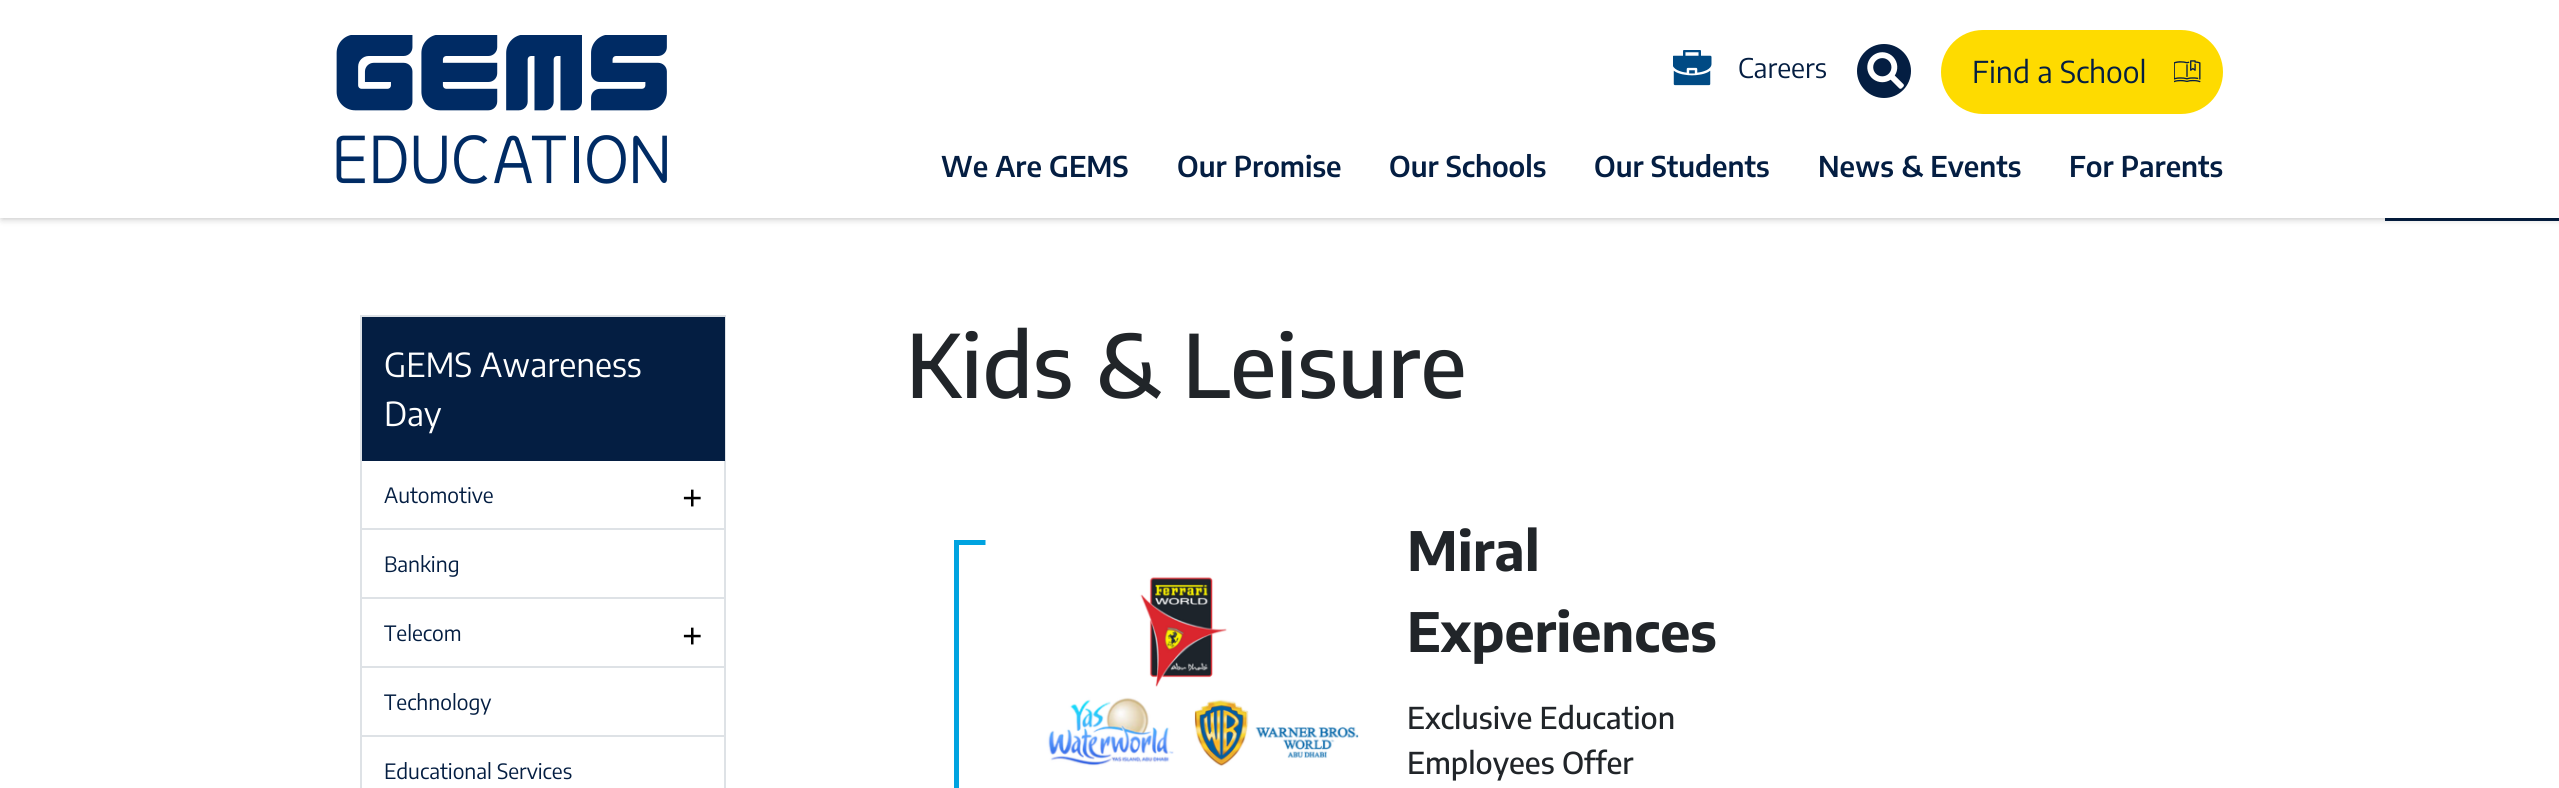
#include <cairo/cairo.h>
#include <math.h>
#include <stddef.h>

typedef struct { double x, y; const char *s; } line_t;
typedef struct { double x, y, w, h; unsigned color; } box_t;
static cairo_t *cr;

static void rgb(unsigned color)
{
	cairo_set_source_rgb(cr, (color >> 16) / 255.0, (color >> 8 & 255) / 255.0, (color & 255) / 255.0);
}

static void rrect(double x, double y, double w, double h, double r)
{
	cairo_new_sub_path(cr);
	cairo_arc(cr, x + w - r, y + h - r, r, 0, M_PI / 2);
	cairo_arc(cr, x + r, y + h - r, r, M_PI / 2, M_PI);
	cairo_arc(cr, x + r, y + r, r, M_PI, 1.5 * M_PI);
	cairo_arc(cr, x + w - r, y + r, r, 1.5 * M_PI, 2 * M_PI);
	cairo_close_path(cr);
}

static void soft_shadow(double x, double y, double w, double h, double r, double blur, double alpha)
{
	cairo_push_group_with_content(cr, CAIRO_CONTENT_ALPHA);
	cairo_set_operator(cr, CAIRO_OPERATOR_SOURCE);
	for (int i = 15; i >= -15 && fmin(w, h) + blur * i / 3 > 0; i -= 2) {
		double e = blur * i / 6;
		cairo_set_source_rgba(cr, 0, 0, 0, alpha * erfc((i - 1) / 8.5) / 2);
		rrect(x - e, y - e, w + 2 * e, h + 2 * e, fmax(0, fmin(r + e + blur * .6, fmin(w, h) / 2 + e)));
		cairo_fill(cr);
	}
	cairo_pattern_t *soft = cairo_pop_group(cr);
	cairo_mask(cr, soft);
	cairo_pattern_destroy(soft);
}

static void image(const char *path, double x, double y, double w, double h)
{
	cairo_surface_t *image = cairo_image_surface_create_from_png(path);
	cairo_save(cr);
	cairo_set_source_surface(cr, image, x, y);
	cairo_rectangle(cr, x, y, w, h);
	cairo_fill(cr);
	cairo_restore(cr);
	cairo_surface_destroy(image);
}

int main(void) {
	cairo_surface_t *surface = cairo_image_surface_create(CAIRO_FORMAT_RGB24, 2559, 788);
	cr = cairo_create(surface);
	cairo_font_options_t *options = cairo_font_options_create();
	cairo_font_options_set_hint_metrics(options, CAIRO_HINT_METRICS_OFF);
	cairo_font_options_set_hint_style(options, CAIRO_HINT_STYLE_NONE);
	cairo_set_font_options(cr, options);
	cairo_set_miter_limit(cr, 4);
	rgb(0xffffff);
	cairo_paint(cr);
	rgb(0x041e42);
	cairo_rectangle(cr, 2385, 218, 174, 3);
	cairo_fill(cr);
	rgb(0x000000);
	soft_shadow(2, 0, 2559, 218, 0, 4, 0.3);
	rgb(0xffffff);
	cairo_rectangle(cr, 0, 0, 2559, 218);
	cairo_fill(cr);
	image("img/1.png", 336, 35, 331, 149);
	image("img/2.png", 1673, 50, 39, 36);
	rgb(0x041e42);
	cairo_arc(cr, 1884, 71, 27, 0, 2 * M_PI);
	cairo_fill(cr);
	image("img/3.png", 1867, 52, 37, 37);
	rgb(0xfedb00);
	rrect(1942, 31, 280, 82, 41);
	cairo_fill_preserve(cr);
	cairo_stroke(cr);
	image("img/4.png", 2174, 60, 27, 23);
	cairo_rectangle(cr, 361, 316, 364, 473);
	rgb(0xdee2e6);
	cairo_stroke(cr);
	{
		static const box_t items[] = {
			{362, 317, 363, 144, 0x041e42},
			{362, 528, 363, 2, 0xdee2e6},
			{362, 597, 363, 2, 0xdee2e6},
			{362, 666, 363, 2, 0xdee2e6},
			{362, 735, 363, 2, 0xdee2e6},
		};
		for (size_t i = 0; i < sizeof items / sizeof *items; i++) {
			rgb(items[i].color);
			cairo_rectangle(cr, items[i].x, items[i].y, items[i].w, items[i].h);
			cairo_fill(cr);
		}
	}
	cairo_rectangle(cr, 956.5, 542.5, 400, 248);
	rgb(0x00a3e0);
	cairo_set_line_width(cr, 5);
	cairo_stroke(cr);
	image("img/5.png", 985, 540, 374, 248);
	cairo_select_font_face(cr, "Encode Sans Condensed", CAIRO_FONT_SLANT_NORMAL, CAIRO_FONT_WEIGHT_NORMAL);
	cairo_set_font_size(cr, 27);
	rgb(0x041e42);
	cairo_move_to(cr, 1738, 78);
	cairo_show_text(cr, "Careers");
	cairo_set_font_size(cr, 30);
	cairo_move_to(cr, 1972, 83);
	cairo_show_text(cr, "Find a School");
	cairo_select_font_face(cr, "Encode Sans Condensed SemiBold", CAIRO_FONT_SLANT_NORMAL, CAIRO_FONT_WEIGHT_NORMAL);
	cairo_set_font_size(cr, 28.5);
	{
		static const line_t items[] = {
			{941, 177, "We Are GEMS"},
			{1177, 177, "Our Promise"},
			{1389, 177, "Our Schools"},
			{1594, 177, "Our Students"},
			{1818, 177, "News & Events"},
			{2069, 177, "For Parents"},
		};
		for (size_t i = 0; i < sizeof items / sizeof *items; i++) {
			cairo_move_to(cr, items[i].x, items[i].y);
			cairo_show_text(cr, items[i].s);
		}
	}
	cairo_select_font_face(cr, "Encode Sans Condensed", CAIRO_FONT_SLANT_NORMAL, CAIRO_FONT_WEIGHT_NORMAL);
	cairo_set_font_size(cr, 33);
	rgb(0xffffff);
	cairo_move_to(cr, 384, 377);
	cairo_show_text(cr, "GEMS Awareness");
	cairo_move_to(cr, 384, 426);
	cairo_show_text(cr, "Day");
	cairo_set_font_size(cr, 21);
	rgb(0x041e42);
	cairo_move_to(cr, 384, 503);
	cairo_show_text(cr, "Automotive");
	cairo_select_font_face(cr, "Liberation Serif", CAIRO_FONT_SLANT_NORMAL, CAIRO_FONT_WEIGHT_BOLD);
	cairo_set_font_size(cr, 36);
	rgb(0x000000);
	cairo_move_to(cr, 682, 510);
	cairo_show_text(cr, "+");
	cairo_select_font_face(cr, "Encode Sans Condensed", CAIRO_FONT_SLANT_NORMAL, CAIRO_FONT_WEIGHT_NORMAL);
	cairo_set_font_size(cr, 21);
	rgb(0x041e42);
	cairo_move_to(cr, 384, 572);
	cairo_show_text(cr, "Banking");
	cairo_move_to(cr, 384, 641);
	cairo_show_text(cr, "Telecom");
	cairo_select_font_face(cr, "Liberation Serif", CAIRO_FONT_SLANT_NORMAL, CAIRO_FONT_WEIGHT_BOLD);
	cairo_set_font_size(cr, 36);
	rgb(0x000000);
	cairo_move_to(cr, 682, 648);
	cairo_show_text(cr, "+");
	cairo_select_font_face(cr, "Encode Sans Condensed", CAIRO_FONT_SLANT_NORMAL, CAIRO_FONT_WEIGHT_NORMAL);
	cairo_set_font_size(cr, 21);
	rgb(0x041e42);
	cairo_move_to(cr, 384, 710);
	cairo_show_text(cr, "Technology");
	cairo_move_to(cr, 384, 779);
	cairo_show_text(cr, "Educational Services");
	cairo_select_font_face(cr, "Encode Sans Condensed Medium", CAIRO_FONT_SLANT_NORMAL, CAIRO_FONT_WEIGHT_NORMAL);
	cairo_set_font_size(cr, 87);
	rgb(0x212529);
	cairo_move_to(cr, 906, 398);
	cairo_show_text(cr, "Kids & Leisure");
	cairo_select_font_face(cr, "Encode Sans Condensed", CAIRO_FONT_SLANT_NORMAL, CAIRO_FONT_WEIGHT_BOLD);
	cairo_set_font_size(cr, 54);
	cairo_move_to(cr, 1407, 571);
	cairo_show_text(cr, "Miral");
	cairo_move_to(cr, 1407, 652);
	cairo_show_text(cr, "Experiences");
	cairo_select_font_face(cr, "Encode Sans Condensed Medium", CAIRO_FONT_SLANT_NORMAL, CAIRO_FONT_WEIGHT_NORMAL);
	cairo_set_font_size(cr, 30);
	cairo_move_to(cr, 1407, 729);
	cairo_show_text(cr, "Exclusive Education");
	cairo_move_to(cr, 1407, 774);
	cairo_show_text(cr, "Employees Offer");
	cairo_surface_write_to_png(surface, "page.png");
	cairo_font_options_destroy(options);
	cairo_destroy(cr);
	cairo_surface_destroy(surface);
	return 0;
}
